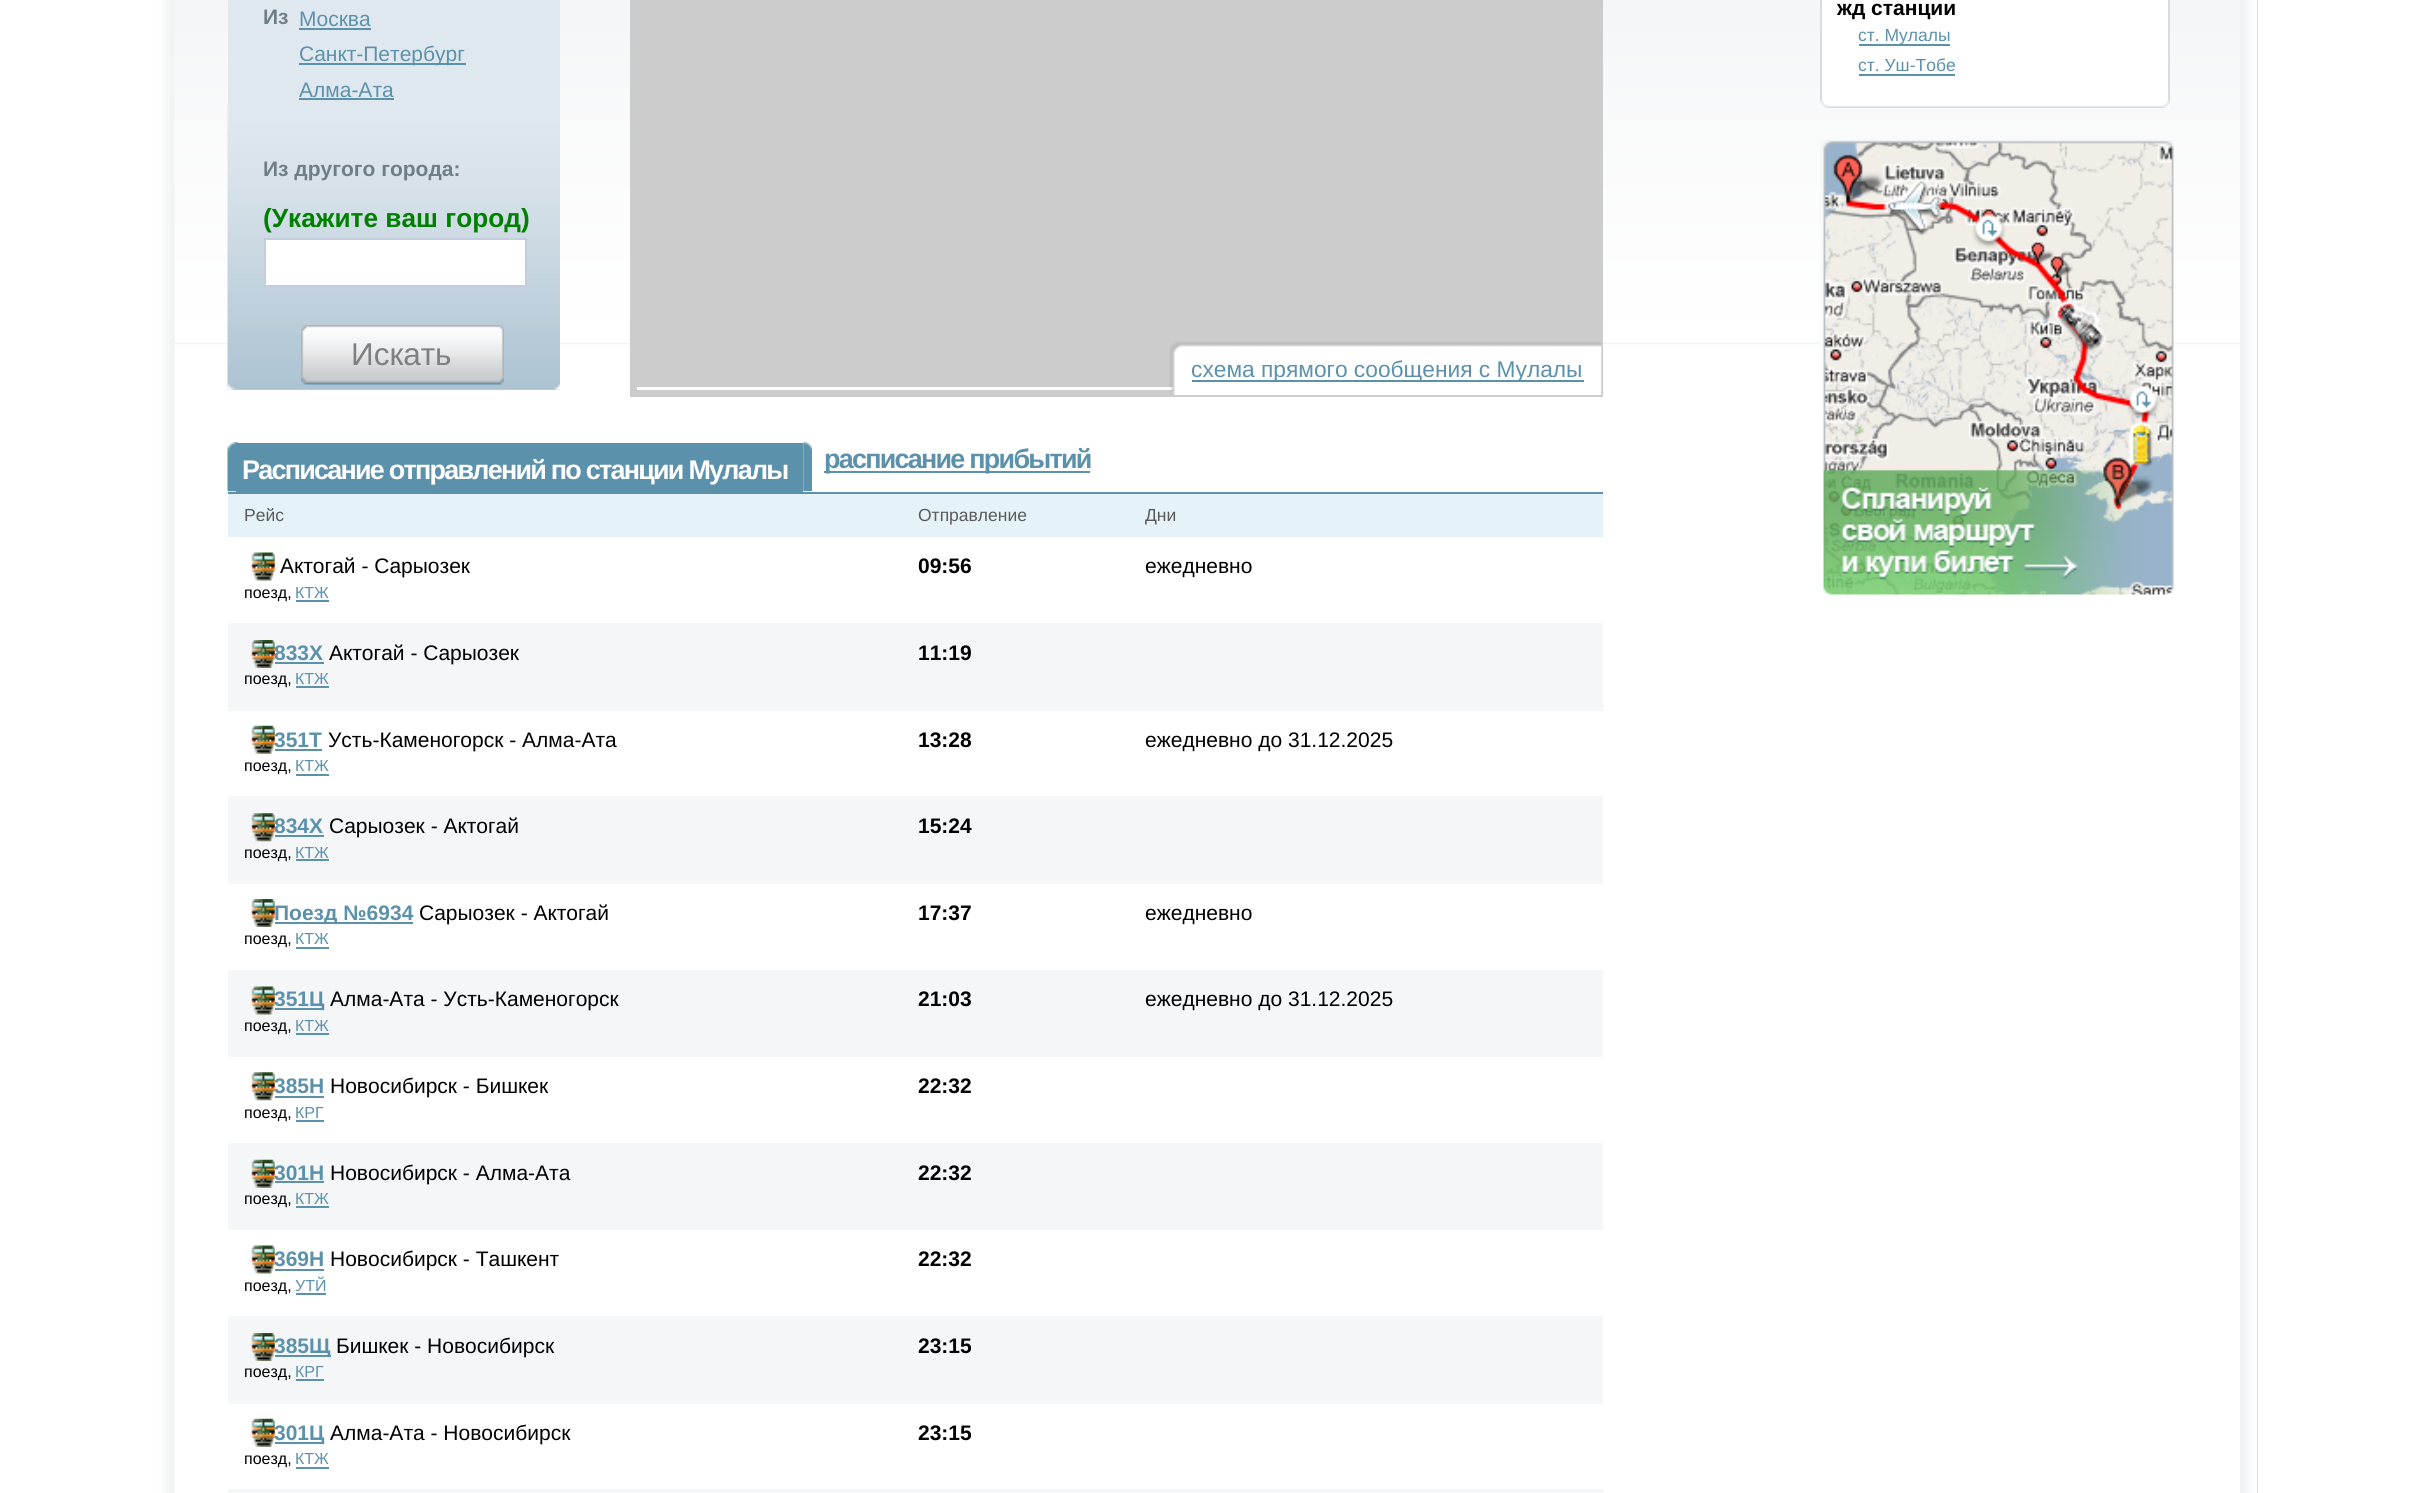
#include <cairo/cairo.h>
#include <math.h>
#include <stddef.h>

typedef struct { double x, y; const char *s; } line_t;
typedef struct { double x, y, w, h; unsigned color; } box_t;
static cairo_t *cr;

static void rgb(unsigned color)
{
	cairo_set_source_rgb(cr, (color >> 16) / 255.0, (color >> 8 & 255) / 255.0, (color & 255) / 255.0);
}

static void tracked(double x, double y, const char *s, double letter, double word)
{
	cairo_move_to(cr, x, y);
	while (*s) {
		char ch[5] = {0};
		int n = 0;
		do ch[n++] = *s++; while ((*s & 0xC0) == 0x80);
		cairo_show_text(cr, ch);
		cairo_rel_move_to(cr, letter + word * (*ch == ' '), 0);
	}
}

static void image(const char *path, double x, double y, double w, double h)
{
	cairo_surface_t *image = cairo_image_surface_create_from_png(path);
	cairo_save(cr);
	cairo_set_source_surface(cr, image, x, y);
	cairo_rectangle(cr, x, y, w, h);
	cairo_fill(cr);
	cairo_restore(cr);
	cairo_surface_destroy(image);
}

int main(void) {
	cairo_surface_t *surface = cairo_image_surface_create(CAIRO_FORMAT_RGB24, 2413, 1493);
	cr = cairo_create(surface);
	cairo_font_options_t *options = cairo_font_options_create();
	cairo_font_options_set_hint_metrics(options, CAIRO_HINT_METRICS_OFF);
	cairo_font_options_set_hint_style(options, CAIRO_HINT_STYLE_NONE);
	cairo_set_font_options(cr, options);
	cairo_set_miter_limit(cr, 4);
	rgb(0xffffff);
	cairo_paint(cr);
	rgb(0xb1bac1);
	cairo_rectangle(cr, 2257, 0, 1, 1493);
	cairo_fill(cr);
	image("img/1.png", 157, 0, 18, 1493);
	image("img/2.png", 2240, 0, 18, 1493);
	image("img/3.png", 175, 0, 2065, 345);
	rgb(0xdfe8ee);
	cairo_rectangle(cr, 228, 0, 332, 390);
	cairo_fill(cr);
	image("img/4.png", 227, 104, 333, 286);
	image("img/5.png", 227, 384, 9, 6);
	image("img/6.png", 553, 384, 7, 6);
	{
		static const box_t items[] = {
			{299, 28, 72, 2, 0x5c91ab},
			{299, 63, 167, 2, 0x5c91ab},
			{299, 98, 95, 2, 0x5c91ab},
		};
		for (size_t i = 0; i < sizeof items / sizeof *items; i++) {
			rgb(items[i].color);
			cairo_rectangle(cr, items[i].x, items[i].y, items[i].w, items[i].h);
			cairo_fill(cr);
		}
	}
	rgb(0xffffff);
	cairo_rectangle(cr, 265, 239, 261, 47);
	cairo_fill_preserve(cr);
	rgb(0xc3cedd);
	cairo_stroke(cr);
	image("img/7.png", 301, 325, 203, 60);
	cairo_rectangle(cr, 633.5, -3.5, 966, 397);
	rgb(0xcccccc);
	cairo_set_line_width(cr, 7);
	cairo_stroke(cr);
	cairo_rectangle(cr, 637, 0, 959, 387);
	cairo_fill(cr);
	image("img/8.png", 1169, 341, 433, 54);
	rgb(0x5c91ab);
	cairo_rectangle(cr, 1192, 380, 392, 2);
	cairo_fill(cr);
	image("img/9.png", 227, 442, 11, 50);
	image("img/10.png", 803, 442, 9, 50);
	{
		static const box_t items[] = {
			{236, 443, 567, 49, 0x5c91ab},
			{824, 471, 266, 2, 0x5c91ab},
			{228, 492, 1375, 2, 0x5c91ab},
			{228, 494, 1375, 43, 0xe5f2f7},
		};
		for (size_t i = 0; i < sizeof items / sizeof *items; i++) {
			rgb(items[i].color);
			cairo_rectangle(cr, items[i].x, items[i].y, items[i].w, items[i].h);
			cairo_fill(cr);
		}
	}
	image("img/11.png", 251, 552, 24, 29);
	rgb(0x5c91ab);
	cairo_rectangle(cr, 296, 600, 33, 2);
	cairo_fill(cr);
	rgb(0xf5f6f7);
	cairo_rectangle(cr, 228, 623, 1375, 88);
	cairo_fill(cr);
	image("img/12.png", 251, 640, 24, 28);
	rgb(0x5c91ab);
	cairo_rectangle(cr, 275, 662, 49, 2);
	cairo_fill(cr);
	cairo_rectangle(cr, 296, 686, 33, 2);
	cairo_fill(cr);
	image("img/13.png", 251, 725, 24, 29);
	{
		static const box_t items[] = {
			{275, 749, 47, 2, 0x5c91ab},
			{296, 774, 33, 2, 0x5c91ab},
			{228, 796, 1375, 88, 0xf5f6f7},
		};
		for (size_t i = 0; i < sizeof items / sizeof *items; i++) {
			rgb(items[i].color);
			cairo_rectangle(cr, items[i].x, items[i].y, items[i].w, items[i].h);
			cairo_fill(cr);
		}
	}
	image("img/14.png", 251, 813, 24, 29);
	rgb(0x5c91ab);
	cairo_rectangle(cr, 275, 835, 49, 2);
	cairo_fill(cr);
	cairo_rectangle(cr, 296, 859, 33, 2);
	cairo_fill(cr);
	image("img/15.png", 251, 899, 24, 28);
	{
		static const box_t items[] = {
			{275, 922, 138, 2, 0x5c91ab},
			{296, 947, 33, 2, 0x5c91ab},
			{228, 970, 1375, 87, 0xf5f6f7},
		};
		for (size_t i = 0; i < sizeof items / sizeof *items; i++) {
			rgb(items[i].color);
			cairo_rectangle(cr, items[i].x, items[i].y, items[i].w, items[i].h);
			cairo_fill(cr);
		}
	}
	image("img/16.png", 251, 986, 24, 29);
	rgb(0x5c91ab);
	cairo_rectangle(cr, 275, 1008, 49, 2);
	cairo_fill(cr);
	cairo_rectangle(cr, 296, 1033, 33, 2);
	cairo_fill(cr);
	image("img/17.png", 251, 1072, 24, 29);
	{
		static const box_t items[] = {
			{275, 1096, 49, 2, 0x5c91ab},
			{296, 1120, 28, 2, 0x5c91ab},
			{228, 1143, 1375, 87, 0xf5f6f7},
		};
		for (size_t i = 0; i < sizeof items / sizeof *items; i++) {
			rgb(items[i].color);
			cairo_rectangle(cr, items[i].x, items[i].y, items[i].w, items[i].h);
			cairo_fill(cr);
		}
	}
	image("img/18.png", 251, 1159, 24, 29);
	rgb(0x5c91ab);
	cairo_rectangle(cr, 275, 1181, 49, 2);
	cairo_fill(cr);
	cairo_rectangle(cr, 296, 1206, 33, 2);
	cairo_fill(cr);
	image("img/11.png", 251, 1245, 24, 29);
	{
		static const box_t items[] = {
			{275, 1269, 49, 2, 0x5c91ab},
			{296, 1293, 30, 2, 0x5c91ab},
			{228, 1316, 1375, 88, 0xf5f6f7},
		};
		for (size_t i = 0; i < sizeof items / sizeof *items; i++) {
			rgb(items[i].color);
			cairo_rectangle(cr, items[i].x, items[i].y, items[i].w, items[i].h);
			cairo_fill(cr);
		}
	}
	image("img/12.png", 251, 1333, 24, 28);
	rgb(0x5c91ab);
	cairo_rectangle(cr, 275, 1355, 56, 2);
	cairo_fill(cr);
	cairo_rectangle(cr, 296, 1379, 28, 2);
	cairo_fill(cr);
	image("img/13.png", 251, 1418, 24, 29);
	{
		static const box_t items[] = {
			{275, 1442, 49, 2, 0x5c91ab},
			{296, 1467, 33, 2, 0x5c91ab},
			{228, 1489, 1375, 4, 0xf5f6f7},
		};
		for (size_t i = 0; i < sizeof items / sizeof *items; i++) {
			rgb(items[i].color);
			cairo_rectangle(cr, items[i].x, items[i].y, items[i].w, items[i].h);
			cairo_fill(cr);
		}
	}
	image("img/19.png", 1820, 100, 350, 8);
	{
		static const box_t items[] = {
			{1822, 0, 346, 100, 0xffffff},
			{2168, 0, 2, 100, 0xd6dcdf},
			{1820, 0, 2, 100, 0xd6dcdf},
			{1859, 44, 91, 2, 0x5c91ab},
			{1859, 74, 96, 2, 0x5c91ab},
		};
		for (size_t i = 0; i < sizeof items / sizeof *items; i++) {
			rgb(items[i].color);
			cairo_rectangle(cr, items[i].x, items[i].y, items[i].w, items[i].h);
			cairo_fill(cr);
		}
	}
	image("img/20.png", 1820, 140, 354, 455);
	cairo_select_font_face(cr, "Liberation Sans", CAIRO_FONT_SLANT_NORMAL, CAIRO_FONT_WEIGHT_BOLD);
	cairo_set_font_size(cr, 21);
	rgb(0x6f7e86);
	cairo_move_to(cr, 263, 24);
	cairo_show_text(cr, "Из");
	cairo_select_font_face(cr, "Liberation Sans", CAIRO_FONT_SLANT_NORMAL, CAIRO_FONT_WEIGHT_NORMAL);
	rgb(0x5c91ab);
	{
		static const line_t items[] = {
			{299, 26, "Москва"},
			{299, 61, "Санкт-Петербург"},
			{299, 97, "Алма-Ата"},
		};
		for (size_t i = 0; i < sizeof items / sizeof *items; i++) {
			cairo_move_to(cr, items[i].x, items[i].y);
			cairo_show_text(cr, items[i].s);
		}
	}
	cairo_select_font_face(cr, "Liberation Sans", CAIRO_FONT_SLANT_NORMAL, CAIRO_FONT_WEIGHT_BOLD);
	rgb(0x6f7e86);
	cairo_move_to(cr, 263, 176);
	cairo_show_text(cr, "Из другого города:");
	cairo_set_font_size(cr, 26.25);
	rgb(0x008000);
	cairo_move_to(cr, 263, 227);
	cairo_show_text(cr, "(Укажите ваш город)");
	cairo_select_font_face(cr, "Liberation Sans", CAIRO_FONT_SLANT_NORMAL, CAIRO_FONT_WEIGHT_NORMAL);
	cairo_set_font_size(cr, 31.5);
	rgb(0x7f7f7f);
	cairo_move_to(cr, 351, 365);
	cairo_show_text(cr, "Искать");
	cairo_set_font_size(cr, 22.75);
	rgb(0x5c91ab);
	cairo_move_to(cr, 1191, 377);
	cairo_show_text(cr, "схема прямого сообщения с Мулалы");
	cairo_select_font_face(cr, "Liberation Sans", CAIRO_FONT_SLANT_NORMAL, CAIRO_FONT_WEIGHT_BOLD);
	cairo_set_font_size(cr, 26.95);
	rgb(0xffffff);
	tracked(242, 479, "Расписание отправлений по станции Мулалы", -1.75, 0);
	rgb(0x5c91ab);
	tracked(824, 468, "расписание прибытий", -1.75, 0);
	cairo_select_font_face(cr, "Liberation Sans", CAIRO_FONT_SLANT_NORMAL, CAIRO_FONT_WEIGHT_NORMAL);
	cairo_set_font_size(cr, 17.5);
	rgb(0x5a5a5a);
	{
		static const line_t items[] = {
			{244, 521, "Рейс"},
			{918, 521, "Отправление"},
			{1145, 521, "Дни"},
		};
		for (size_t i = 0; i < sizeof items / sizeof *items; i++) {
			cairo_move_to(cr, items[i].x, items[i].y);
			cairo_show_text(cr, items[i].s);
		}
	}
	cairo_set_font_size(cr, 21);
	rgb(0x000000);
	cairo_move_to(cr, 280, 573);
	cairo_show_text(cr, "Актогай - Сарыозек");
	cairo_set_font_size(cr, 16);
	cairo_move_to(cr, 244, 598);
	cairo_show_text(cr, "поезд,");
	rgb(0x5c91ab);
	cairo_move_to(cr, 295, 598);
	cairo_show_text(cr, "КТЖ");
	cairo_select_font_face(cr, "Liberation Sans", CAIRO_FONT_SLANT_NORMAL, CAIRO_FONT_WEIGHT_BOLD);
	cairo_set_font_size(cr, 21);
	rgb(0x000000);
	cairo_move_to(cr, 918, 573);
	cairo_show_text(cr, "09:56");
	cairo_select_font_face(cr, "Liberation Sans", CAIRO_FONT_SLANT_NORMAL, CAIRO_FONT_WEIGHT_NORMAL);
	cairo_move_to(cr, 1145, 573);
	cairo_show_text(cr, "ежедневно");
	cairo_select_font_face(cr, "Liberation Sans", CAIRO_FONT_SLANT_NORMAL, CAIRO_FONT_WEIGHT_BOLD);
	rgb(0x5c91ab);
	cairo_move_to(cr, 274, 660);
	cairo_show_text(cr, "833Х");
	cairo_select_font_face(cr, "Liberation Sans", CAIRO_FONT_SLANT_NORMAL, CAIRO_FONT_WEIGHT_NORMAL);
	rgb(0x000000);
	cairo_move_to(cr, 329, 660);
	cairo_show_text(cr, "Актогай - Сарыозек");
	cairo_set_font_size(cr, 16);
	cairo_move_to(cr, 244, 684);
	cairo_show_text(cr, "поезд,");
	rgb(0x5c91ab);
	cairo_move_to(cr, 295, 684);
	cairo_show_text(cr, "КТЖ");
	cairo_select_font_face(cr, "Liberation Sans", CAIRO_FONT_SLANT_NORMAL, CAIRO_FONT_WEIGHT_BOLD);
	cairo_set_font_size(cr, 21);
	rgb(0x000000);
	cairo_move_to(cr, 918, 660);
	cairo_show_text(cr, "11:19");
	rgb(0x5c91ab);
	cairo_move_to(cr, 274, 747);
	cairo_show_text(cr, "351Т");
	cairo_select_font_face(cr, "Liberation Sans", CAIRO_FONT_SLANT_NORMAL, CAIRO_FONT_WEIGHT_NORMAL);
	rgb(0x000000);
	cairo_move_to(cr, 328, 747);
	cairo_show_text(cr, "Усть-Каменогорск - Алма-Ата");
	cairo_set_font_size(cr, 16);
	cairo_move_to(cr, 244, 771);
	cairo_show_text(cr, "поезд,");
	rgb(0x5c91ab);
	cairo_move_to(cr, 295, 771);
	cairo_show_text(cr, "КТЖ");
	cairo_select_font_face(cr, "Liberation Sans", CAIRO_FONT_SLANT_NORMAL, CAIRO_FONT_WEIGHT_BOLD);
	cairo_set_font_size(cr, 21);
	rgb(0x000000);
	cairo_move_to(cr, 918, 747);
	cairo_show_text(cr, "13:28");
	cairo_select_font_face(cr, "Liberation Sans", CAIRO_FONT_SLANT_NORMAL, CAIRO_FONT_WEIGHT_NORMAL);
	cairo_move_to(cr, 1145, 747);
	cairo_show_text(cr, "ежедневно до 31.12.2025");
	cairo_select_font_face(cr, "Liberation Sans", CAIRO_FONT_SLANT_NORMAL, CAIRO_FONT_WEIGHT_BOLD);
	rgb(0x5c91ab);
	cairo_move_to(cr, 274, 833);
	cairo_show_text(cr, "834Х");
	cairo_select_font_face(cr, "Liberation Sans", CAIRO_FONT_SLANT_NORMAL, CAIRO_FONT_WEIGHT_NORMAL);
	rgb(0x000000);
	cairo_move_to(cr, 329, 833);
	cairo_show_text(cr, "Сарыозек - Актогай");
	cairo_set_font_size(cr, 16);
	cairo_move_to(cr, 244, 858);
	cairo_show_text(cr, "поезд,");
	rgb(0x5c91ab);
	cairo_move_to(cr, 295, 858);
	cairo_show_text(cr, "КТЖ");
	cairo_select_font_face(cr, "Liberation Sans", CAIRO_FONT_SLANT_NORMAL, CAIRO_FONT_WEIGHT_BOLD);
	cairo_set_font_size(cr, 21);
	rgb(0x000000);
	cairo_move_to(cr, 918, 833);
	cairo_show_text(cr, "15:24");
	rgb(0x5c91ab);
	cairo_move_to(cr, 274, 920);
	cairo_show_text(cr, "Поезд №6934");
	cairo_select_font_face(cr, "Liberation Sans", CAIRO_FONT_SLANT_NORMAL, CAIRO_FONT_WEIGHT_NORMAL);
	rgb(0x000000);
	cairo_move_to(cr, 419, 920);
	cairo_show_text(cr, "Сарыозек - Актогай");
	cairo_set_font_size(cr, 16);
	cairo_move_to(cr, 244, 944);
	cairo_show_text(cr, "поезд,");
	rgb(0x5c91ab);
	cairo_move_to(cr, 295, 944);
	cairo_show_text(cr, "КТЖ");
	cairo_select_font_face(cr, "Liberation Sans", CAIRO_FONT_SLANT_NORMAL, CAIRO_FONT_WEIGHT_BOLD);
	cairo_set_font_size(cr, 21);
	rgb(0x000000);
	cairo_move_to(cr, 918, 920);
	cairo_show_text(cr, "17:37");
	cairo_select_font_face(cr, "Liberation Sans", CAIRO_FONT_SLANT_NORMAL, CAIRO_FONT_WEIGHT_NORMAL);
	cairo_move_to(cr, 1145, 920);
	cairo_show_text(cr, "ежедневно");
	cairo_select_font_face(cr, "Liberation Sans", CAIRO_FONT_SLANT_NORMAL, CAIRO_FONT_WEIGHT_BOLD);
	rgb(0x5c91ab);
	cairo_move_to(cr, 274, 1006);
	cairo_show_text(cr, "351Ц");
	cairo_select_font_face(cr, "Liberation Sans", CAIRO_FONT_SLANT_NORMAL, CAIRO_FONT_WEIGHT_NORMAL);
	rgb(0x000000);
	cairo_move_to(cr, 330, 1006);
	cairo_show_text(cr, "Алма-Ата - Усть-Каменогорск");
	cairo_set_font_size(cr, 16);
	cairo_move_to(cr, 244, 1031);
	cairo_show_text(cr, "поезд,");
	rgb(0x5c91ab);
	cairo_move_to(cr, 295, 1031);
	cairo_show_text(cr, "КТЖ");
	cairo_select_font_face(cr, "Liberation Sans", CAIRO_FONT_SLANT_NORMAL, CAIRO_FONT_WEIGHT_BOLD);
	cairo_set_font_size(cr, 21);
	rgb(0x000000);
	cairo_move_to(cr, 918, 1006);
	cairo_show_text(cr, "21:03");
	cairo_select_font_face(cr, "Liberation Sans", CAIRO_FONT_SLANT_NORMAL, CAIRO_FONT_WEIGHT_NORMAL);
	cairo_move_to(cr, 1145, 1006);
	cairo_show_text(cr, "ежедневно до 31.12.2025");
	cairo_select_font_face(cr, "Liberation Sans", CAIRO_FONT_SLANT_NORMAL, CAIRO_FONT_WEIGHT_BOLD);
	rgb(0x5c91ab);
	cairo_move_to(cr, 274, 1093);
	cairo_show_text(cr, "385Н");
	cairo_select_font_face(cr, "Liberation Sans", CAIRO_FONT_SLANT_NORMAL, CAIRO_FONT_WEIGHT_NORMAL);
	rgb(0x000000);
	cairo_move_to(cr, 330, 1093);
	cairo_show_text(cr, "Новосибирск - Бишкек");
	cairo_set_font_size(cr, 16);
	cairo_move_to(cr, 244, 1118);
	cairo_show_text(cr, "поезд,");
	rgb(0x5c91ab);
	cairo_move_to(cr, 295, 1118);
	cairo_show_text(cr, "КРГ");
	cairo_select_font_face(cr, "Liberation Sans", CAIRO_FONT_SLANT_NORMAL, CAIRO_FONT_WEIGHT_BOLD);
	cairo_set_font_size(cr, 21);
	rgb(0x000000);
	cairo_move_to(cr, 918, 1093);
	cairo_show_text(cr, "22:32");
	rgb(0x5c91ab);
	cairo_move_to(cr, 274, 1180);
	cairo_show_text(cr, "301Н");
	cairo_select_font_face(cr, "Liberation Sans", CAIRO_FONT_SLANT_NORMAL, CAIRO_FONT_WEIGHT_NORMAL);
	rgb(0x000000);
	cairo_move_to(cr, 330, 1180);
	cairo_show_text(cr, "Новосибирск - Алма-Ата");
	cairo_set_font_size(cr, 16);
	cairo_move_to(cr, 244, 1204);
	cairo_show_text(cr, "поезд,");
	rgb(0x5c91ab);
	cairo_move_to(cr, 295, 1204);
	cairo_show_text(cr, "КТЖ");
	cairo_select_font_face(cr, "Liberation Sans", CAIRO_FONT_SLANT_NORMAL, CAIRO_FONT_WEIGHT_BOLD);
	cairo_set_font_size(cr, 21);
	rgb(0x000000);
	cairo_move_to(cr, 918, 1180);
	cairo_show_text(cr, "22:32");
	rgb(0x5c91ab);
	cairo_move_to(cr, 274, 1266);
	cairo_show_text(cr, "369Н");
	cairo_select_font_face(cr, "Liberation Sans", CAIRO_FONT_SLANT_NORMAL, CAIRO_FONT_WEIGHT_NORMAL);
	rgb(0x000000);
	cairo_move_to(cr, 330, 1266);
	cairo_show_text(cr, "Новосибирск - Ташкент");
	cairo_set_font_size(cr, 16);
	cairo_move_to(cr, 244, 1291);
	cairo_show_text(cr, "поезд,");
	rgb(0x5c91ab);
	cairo_move_to(cr, 295, 1291);
	cairo_show_text(cr, "УТЙ");
	cairo_select_font_face(cr, "Liberation Sans", CAIRO_FONT_SLANT_NORMAL, CAIRO_FONT_WEIGHT_BOLD);
	cairo_set_font_size(cr, 21);
	rgb(0x000000);
	cairo_move_to(cr, 918, 1266);
	cairo_show_text(cr, "22:32");
	rgb(0x5c91ab);
	cairo_move_to(cr, 274, 1353);
	cairo_show_text(cr, "385Щ");
	cairo_select_font_face(cr, "Liberation Sans", CAIRO_FONT_SLANT_NORMAL, CAIRO_FONT_WEIGHT_NORMAL);
	rgb(0x000000);
	cairo_move_to(cr, 336, 1353);
	cairo_show_text(cr, "Бишкек - Новосибирск");
	cairo_set_font_size(cr, 16);
	cairo_move_to(cr, 244, 1377);
	cairo_show_text(cr, "поезд,");
	rgb(0x5c91ab);
	cairo_move_to(cr, 295, 1377);
	cairo_show_text(cr, "КРГ");
	cairo_select_font_face(cr, "Liberation Sans", CAIRO_FONT_SLANT_NORMAL, CAIRO_FONT_WEIGHT_BOLD);
	cairo_set_font_size(cr, 21);
	rgb(0x000000);
	cairo_move_to(cr, 918, 1353);
	cairo_show_text(cr, "23:15");
	rgb(0x5c91ab);
	cairo_move_to(cr, 274, 1440);
	cairo_show_text(cr, "301Ц");
	cairo_select_font_face(cr, "Liberation Sans", CAIRO_FONT_SLANT_NORMAL, CAIRO_FONT_WEIGHT_NORMAL);
	rgb(0x000000);
	cairo_move_to(cr, 330, 1440);
	cairo_show_text(cr, "Алма-Ата - Новосибирск");
	cairo_set_font_size(cr, 16);
	cairo_move_to(cr, 244, 1464);
	cairo_show_text(cr, "поезд,");
	rgb(0x5c91ab);
	cairo_move_to(cr, 295, 1464);
	cairo_show_text(cr, "КТЖ");
	cairo_select_font_face(cr, "Liberation Sans", CAIRO_FONT_SLANT_NORMAL, CAIRO_FONT_WEIGHT_BOLD);
	cairo_set_font_size(cr, 21);
	rgb(0x000000);
	cairo_move_to(cr, 918, 1440);
	cairo_show_text(cr, "23:15");
	cairo_move_to(cr, 1837, 15);
	cairo_show_text(cr, "жд станции");
	cairo_select_font_face(cr, "Liberation Sans", CAIRO_FONT_SLANT_NORMAL, CAIRO_FONT_WEIGHT_NORMAL);
	cairo_set_font_size(cr, 17.5);
	rgb(0x5c91ab);
	cairo_move_to(cr, 1858, 41);
	cairo_show_text(cr, "ст. Мулалы");
	cairo_move_to(cr, 1858, 71);
	cairo_show_text(cr, "ст. Уш-Тобе");
	cairo_surface_write_to_png(surface, "page.png");
	cairo_font_options_destroy(options);
	cairo_destroy(cr);
	cairo_surface_destroy(surface);
	return 0;
}
